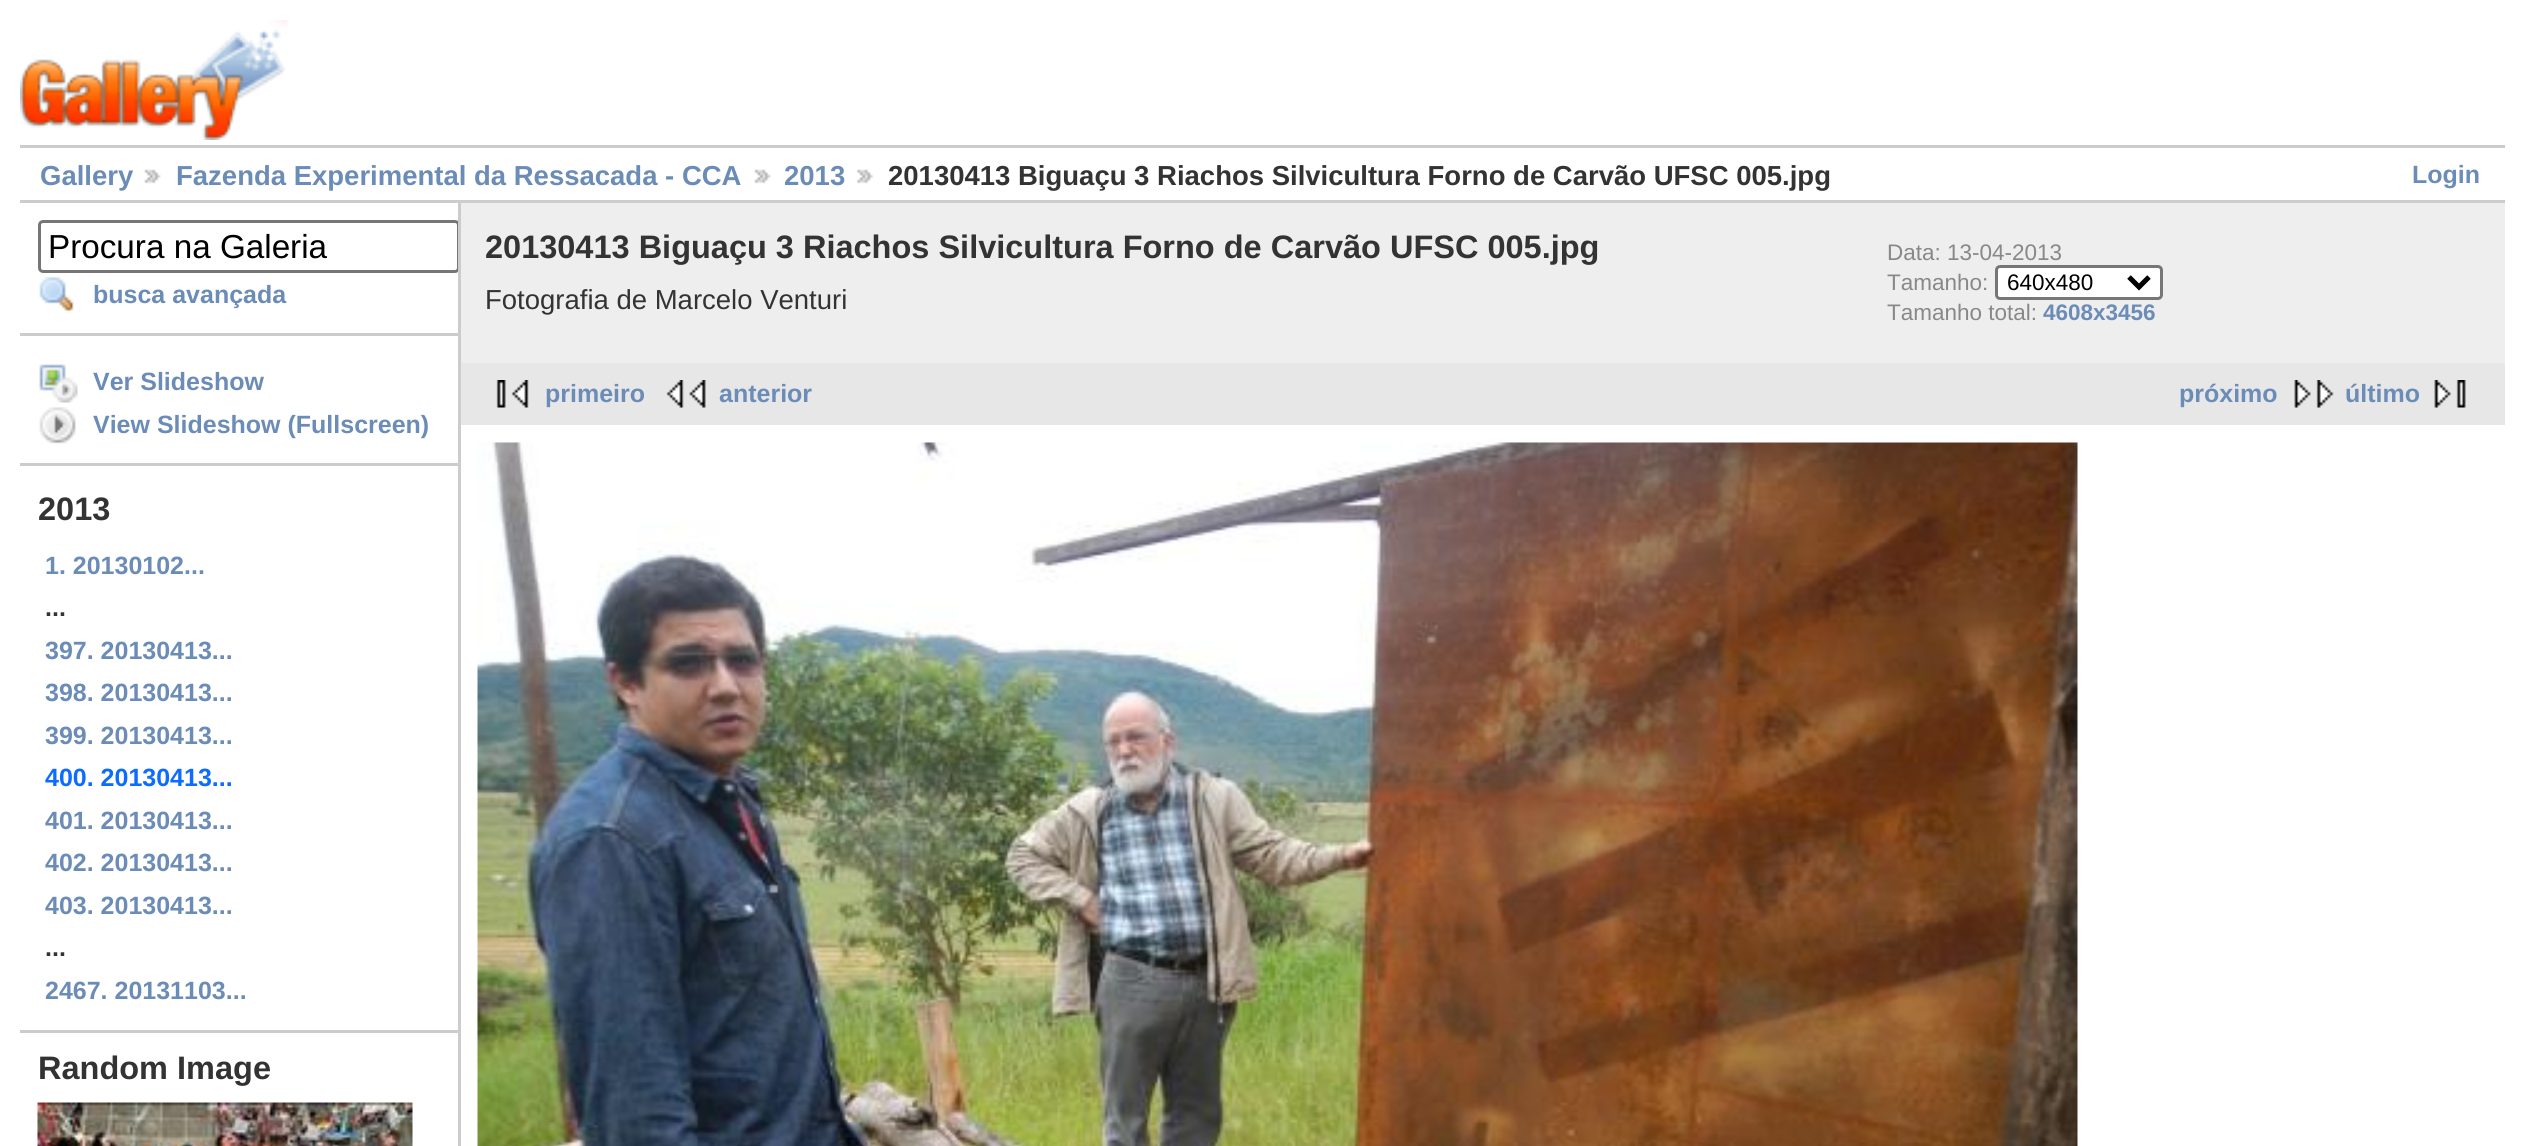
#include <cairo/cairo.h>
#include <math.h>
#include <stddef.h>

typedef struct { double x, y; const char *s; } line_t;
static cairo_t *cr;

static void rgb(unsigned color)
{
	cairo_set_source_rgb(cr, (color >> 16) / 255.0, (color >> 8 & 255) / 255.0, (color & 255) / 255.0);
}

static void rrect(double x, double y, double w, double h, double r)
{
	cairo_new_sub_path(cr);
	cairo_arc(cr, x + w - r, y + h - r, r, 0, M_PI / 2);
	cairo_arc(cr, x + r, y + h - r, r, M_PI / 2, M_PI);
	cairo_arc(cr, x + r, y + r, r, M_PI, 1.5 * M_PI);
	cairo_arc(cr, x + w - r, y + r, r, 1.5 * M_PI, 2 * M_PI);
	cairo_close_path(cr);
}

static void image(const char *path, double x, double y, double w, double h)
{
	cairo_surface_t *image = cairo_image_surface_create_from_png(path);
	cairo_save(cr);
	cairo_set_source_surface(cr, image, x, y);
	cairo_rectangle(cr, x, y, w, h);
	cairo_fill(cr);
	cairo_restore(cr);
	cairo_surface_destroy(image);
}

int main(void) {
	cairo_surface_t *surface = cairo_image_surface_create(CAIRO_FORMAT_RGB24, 2525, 1146);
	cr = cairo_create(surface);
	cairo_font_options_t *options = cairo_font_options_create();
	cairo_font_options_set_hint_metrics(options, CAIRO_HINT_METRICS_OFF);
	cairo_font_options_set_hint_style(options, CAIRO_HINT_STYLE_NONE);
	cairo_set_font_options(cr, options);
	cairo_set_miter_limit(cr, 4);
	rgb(0xffffff);
	cairo_paint(cr);
	image("img/1.png", 20, 20, 268, 120);
	rgb(0xcccccc);
	cairo_rectangle(cr, 20, 145, 2485, 3);
	cairo_fill(cr);
	cairo_rectangle(cr, 20, 200, 2485, 3);
	cairo_fill(cr);
	image("img/2.png", 144, 169, 17, 15);
	image("img/3.png", 754, 169, 17, 15);
	image("img/4.png", 856, 169, 18, 15);
	cairo_rectangle(cr, 458, 203, 3, 943);
	cairo_fill(cr);
	cairo_rectangle(cr, 20, 333, 438, 3);
	cairo_fill(cr);
	cairo_save(cr);
	cairo_rectangle(cr, 20, 203, 438, 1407);
	cairo_clip(cr);
	rrect(39.5, 221.5, 419, 50, 3.5);
	rgb(0x767676);
	cairo_set_line_width(cr, 3);
	cairo_stroke(cr);
	cairo_restore(cr);
	image("img/5.png", 39, 276, 35, 37);
	cairo_rectangle(cr, 20, 463, 438, 3);
	cairo_fill(cr);
	image("img/6.png", 39, 364, 39, 39);
	image("img/7.png", 39, 407, 37, 37);
	cairo_rectangle(cr, 20, 1030, 438, 3);
	cairo_fill(cr);
	image("img/8.png", 37, 1102, 376, 44);
	rgb(0xeeeeee);
	cairo_rectangle(cr, 461, 203, 2044, 160);
	cairo_fill(cr);
	rgb(0xffffff);
	rrect(1996.5, 266.5, 165, 32, 3.5);
	cairo_fill_preserve(cr);
	rgb(0x767676);
	cairo_set_line_width(cr, 3);
	cairo_stroke(cr);
	cairo_new_path(cr);
	cairo_move_to(cr, 2129, 277);
	cairo_line_to(cr, 2139, 287);
	cairo_line_to(cr, 2149, 277);
	rgb(0x000000);
	cairo_set_line_width(cr, 5);
	cairo_stroke(cr);
	rgb(0xe7e7e7);
	cairo_rectangle(cr, 461, 363, 2044, 62);
	cairo_fill(cr);
	image("img/9.png", 496, 380, 33, 28);
	image("img/10.png", 666, 380, 40, 28);
	image("img/11.png", 2294, 380, 40, 28);
	image("img/12.png", 2434, 380, 32, 28);
	image("img/13.png", 477, 442, 1601, 704);
	cairo_select_font_face(cr, "Liberation Sans", CAIRO_FONT_SLANT_NORMAL, CAIRO_FONT_WEIGHT_BOLD);
	cairo_set_font_size(cr, 27.5);
	rgb(0x6b8cb7);
	{
		static const line_t items[] = {
			{40, 185, "Gallery"},
			{176, 185, "Fazenda Experimental da Ressacada - CCA"},
			{784, 185, "2013"},
		};
		for (size_t i = 0; i < sizeof items / sizeof *items; i++) {
			cairo_move_to(cr, items[i].x, items[i].y);
			cairo_show_text(cr, items[i].s);
		}
	}
	rgb(0x333333);
	cairo_move_to(cr, 888, 185);
	cairo_show_text(cr, "20130413 Biguaçu 3 Riachos Silvicultura Forno de Carvão UFSC 005.jpg");
	cairo_set_font_size(cr, 25);
	rgb(0x6b8cb7);
	cairo_move_to(cr, 2412, 183);
	cairo_show_text(cr, "Login");
	cairo_select_font_face(cr, "Liberation Sans", CAIRO_FONT_SLANT_NORMAL, CAIRO_FONT_WEIGHT_NORMAL);
	cairo_set_font_size(cr, 33.25);
	rgb(0x000000);
	cairo_move_to(cr, 48, 258);
	cairo_show_text(cr, "Procura na Galeria");
	cairo_select_font_face(cr, "Liberation Sans", CAIRO_FONT_SLANT_NORMAL, CAIRO_FONT_WEIGHT_BOLD);
	cairo_set_font_size(cr, 25);
	rgb(0x6b8cb7);
	{
		static const line_t items[] = {
			{93, 303, "busca avançada"},
			{93, 390, "Ver Slideshow"},
			{93, 433, "View Slideshow (Fullscreen)"},
		};
		for (size_t i = 0; i < sizeof items / sizeof *items; i++) {
			cairo_move_to(cr, items[i].x, items[i].y);
			cairo_show_text(cr, items[i].s);
		}
	}
	cairo_set_font_size(cr, 32.5);
	rgb(0x333333);
	cairo_move_to(cr, 38, 520);
	cairo_show_text(cr, "2013");
	cairo_set_font_size(cr, 25);
	rgb(0x6b8cb7);
	cairo_move_to(cr, 45, 574);
	cairo_show_text(cr, "1. 20130102...");
	rgb(0x333333);
	cairo_move_to(cr, 45, 616);
	cairo_show_text(cr, "...");
	rgb(0x6b8cb7);
	{
		static const line_t items[] = {
			{45, 659, "397. 20130413..."},
			{45, 701, "398. 20130413..."},
			{45, 744, "399. 20130413..."},
		};
		for (size_t i = 0; i < sizeof items / sizeof *items; i++) {
			cairo_move_to(cr, items[i].x, items[i].y);
			cairo_show_text(cr, items[i].s);
		}
	}
	rgb(0x0b6cff);
	cairo_move_to(cr, 45, 786);
	cairo_show_text(cr, "400. 20130413...");
	rgb(0x6b8cb7);
	{
		static const line_t items[] = {
			{45, 829, "401. 20130413..."},
			{45, 871, "402. 20130413..."},
			{45, 914, "403. 20130413..."},
		};
		for (size_t i = 0; i < sizeof items / sizeof *items; i++) {
			cairo_move_to(cr, items[i].x, items[i].y);
			cairo_show_text(cr, items[i].s);
		}
	}
	rgb(0x333333);
	cairo_move_to(cr, 45, 956);
	cairo_show_text(cr, "...");
	rgb(0x6b8cb7);
	cairo_move_to(cr, 45, 999);
	cairo_show_text(cr, "2467. 20131103...");
	cairo_set_font_size(cr, 32.5);
	rgb(0x333333);
	cairo_move_to(cr, 38, 1079);
	cairo_show_text(cr, "Random Image");
	cairo_move_to(cr, 485, 258);
	cairo_show_text(cr, "20130413 Biguaçu 3 Riachos Silvicultura Forno de Carvão UFSC 005.jpg");
	cairo_select_font_face(cr, "Liberation Sans", CAIRO_FONT_SLANT_NORMAL, CAIRO_FONT_WEIGHT_NORMAL);
	cairo_set_font_size(cr, 27.5);
	cairo_move_to(cr, 485, 309);
	cairo_show_text(cr, "Fotografia de Marcelo Venturi");
	cairo_set_font_size(cr, 22.5);
	rgb(0x888888);
	cairo_move_to(cr, 1887, 260);
	cairo_show_text(cr, "Data: 13-04-2013");
	cairo_move_to(cr, 1887, 290);
	cairo_show_text(cr, "Tamanho:");
	cairo_save(cr);
	cairo_rectangle(cr, 2008, 268, 112, 30);
	cairo_clip(cr);
	rgb(0x000000);
	cairo_move_to(cr, 2007, 290);
	cairo_show_text(cr, "640x480");
	cairo_restore(cr);
	cairo_move_to(cr, 1887, 320);
	cairo_show_text(cr, "Tamanho total:");
	cairo_select_font_face(cr, "Liberation Sans", CAIRO_FONT_SLANT_NORMAL, CAIRO_FONT_WEIGHT_BOLD);
	rgb(0x6b8cb7);
	cairo_move_to(cr, 2043, 320);
	cairo_show_text(cr, "4608x3456");
	cairo_set_font_size(cr, 25);
	{
		static const line_t items[] = {
			{545, 402, "primeiro"},
			{719, 402, "anterior"},
			{2179, 402, "próximo"},
			{2345, 402, "último"},
		};
		for (size_t i = 0; i < sizeof items / sizeof *items; i++) {
			cairo_move_to(cr, items[i].x, items[i].y);
			cairo_show_text(cr, items[i].s);
		}
	}
	cairo_surface_write_to_png(surface, "page.png");
	cairo_font_options_destroy(options);
	cairo_destroy(cr);
	cairo_surface_destroy(surface);
	return 0;
}
